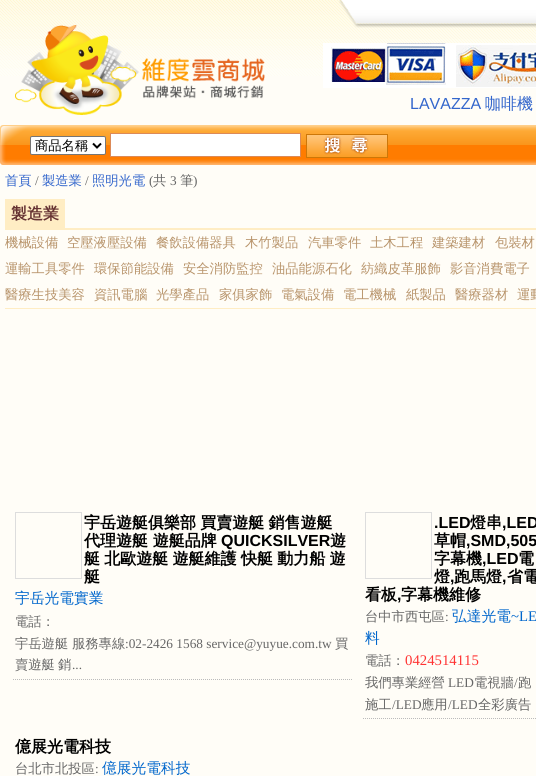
#include <cairo/cairo.h>
#include <math.h>
#include <stddef.h>

typedef struct { double x, y; const char *s; } line_t;
typedef struct { double x, y, w, h; unsigned color; } box_t;
static cairo_t *cr;

static void rgb(unsigned color)
{
	cairo_set_source_rgb(cr, (color >> 16) / 255.0, (color >> 8 & 255) / 255.0, (color & 255) / 255.0);
}

static void tracked(double x, double y, const char *s, double letter, double word)
{
	cairo_move_to(cr, x, y);
	while (*s) {
		char ch[5] = {0};
		int n = 0;
		do ch[n++] = *s++; while ((*s & 0xC0) == 0x80);
		cairo_show_text(cr, ch);
		cairo_rel_move_to(cr, letter + word * (*ch == ' '), 0);
	}
}

static void rrect(double x, double y, double w, double h, double r)
{
	cairo_new_sub_path(cr);
	cairo_arc(cr, x + w - r, y + h - r, r, 0, M_PI / 2);
	cairo_arc(cr, x + r, y + h - r, r, M_PI / 2, M_PI);
	cairo_arc(cr, x + r, y + r, r, M_PI, 1.5 * M_PI);
	cairo_arc(cr, x + w - r, y + r, r, 1.5 * M_PI, 2 * M_PI);
	cairo_close_path(cr);
}

static void image(const char *path, double x, double y, double w, double h)
{
	cairo_surface_t *image = cairo_image_surface_create_from_png(path);
	cairo_save(cr);
	cairo_set_source_surface(cr, image, x, y);
	cairo_rectangle(cr, x, y, w, h);
	cairo_fill(cr);
	cairo_restore(cr);
	cairo_surface_destroy(image);
}

int main(void) {
	cairo_surface_t *surface = cairo_image_surface_create(CAIRO_FORMAT_RGB24, 536, 776);
	cr = cairo_create(surface);
	cairo_font_options_t *options = cairo_font_options_create();
	cairo_font_options_set_hint_metrics(options, CAIRO_HINT_METRICS_OFF);
	cairo_font_options_set_hint_style(options, CAIRO_HINT_STYLE_NONE);
	cairo_set_font_options(cr, options);
	cairo_set_miter_limit(cr, 4);
	rgb(0xfffdf7);
	cairo_paint(cr);
	image("img/1.png", 0, 0, 536, 76);
	image("img/2.png", 339, 0, 197, 28);
	image("img/3.png", 15, 25, 250, 90);
	image("img/4.png", 323, 43, 213, 45);
	image("img/5.png", 0, 125, 536, 40);
	rgb(0xffffff);
	rrect(30.5, 136.5, 75, 18, 1.5);
	cairo_fill_preserve(cr);
	rgb(0x767676);
	cairo_set_line_width(cr, 1);
	cairo_stroke(cr);
	cairo_new_path(cr);
	cairo_move_to(cr, 93, 143.5);
	cairo_line_to(cr, 97, 147.5);
	cairo_line_to(cr, 101, 143.5);
	rgb(0x000000);
	cairo_set_line_width(cr, 2);
	cairo_stroke(cr);
	rgb(0xffffff);
	cairo_rectangle(cr, 110.5, 133.5, 190, 23);
	cairo_fill_preserve(cr);
	rgb(0xdc8a58);
	cairo_set_line_width(cr, 1);
	cairo_stroke(cr);
	image("img/6.png", 306, 134, 82, 24);
	{
		static const box_t items[] = {
			{5, 308, 531, 1, 0xffedc4},
			{5, 228, 531, 2, 0xffedc4},
			{5, 199, 60, 29, 0xffedc4},
		};
		for (size_t i = 0; i < sizeof items / sizeof *items; i++) {
			rgb(items[i].color);
			cairo_rectangle(cr, items[i].x, items[i].y, items[i].w, items[i].h);
			cairo_fill(cr);
		}
	}
	cairo_new_path(cr);
	cairo_move_to(cr, 11, 679.5);
	cairo_line_to(cr, 353, 679.5);
	rgb(0xbbbbbb);
	cairo_set_dash(cr, (double[]){1, 1}, 2, 0);
	cairo_stroke(cr);
	rgb(0xfffdf7);
	cairo_rectangle(cr, 11, 679, 1, 1);
	cairo_fill(cr);
	cairo_rectangle(cr, 15.5, 512.5, 66, 66);
	rgb(0xdddddd);
	cairo_set_dash(cr, NULL, 0, 0);
	cairo_stroke(cr);
	cairo_new_path(cr);
	cairo_move_to(cr, 361, 718.5);
	cairo_line_to(cr, 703, 718.5);
	rgb(0xbbbbbb);
	cairo_set_dash(cr, (double[]){1, 1}, 2, 0);
	cairo_stroke(cr);
	rgb(0xfffdf7);
	cairo_rectangle(cr, 361, 718, 1, 1);
	cairo_fill(cr);
	cairo_rectangle(cr, 365.5, 512.5, 66, 66);
	rgb(0xdddddd);
	cairo_set_dash(cr, NULL, 0, 0);
	cairo_stroke(cr);
	cairo_select_font_face(cr, "Liberation Sans", CAIRO_FONT_SLANT_NORMAL, CAIRO_FONT_WEIGHT_NORMAL);
	cairo_set_font_size(cr, 16);
	rgb(0x3366cc);
	cairo_move_to(cr, 410, 109);
	cairo_show_text(cr, "LAVAZZA");
	cairo_select_font_face(cr, "WenQuanYi Zen Hei Medium", CAIRO_FONT_SLANT_NORMAL, CAIRO_FONT_WEIGHT_NORMAL);
	cairo_move_to(cr, 485, 109);
	cairo_show_text(cr, "咖啡機");
	cairo_set_font_size(cr, 13.3);
	rgb(0x000000);
	cairo_move_to(cr, 35, 150);
	cairo_show_text(cr, "商品名稱");
	rgb(0x3366cc);
	cairo_move_to(cr, 5, 185);
	cairo_show_text(cr, "首頁");
	cairo_select_font_face(cr, "Liberation Serif", CAIRO_FONT_SLANT_NORMAL, CAIRO_FONT_WEIGHT_NORMAL);
	rgb(0x666666);
	cairo_move_to(cr, 35, 185);
	cairo_show_text(cr, "/");
	cairo_select_font_face(cr, "WenQuanYi Zen Hei Medium", CAIRO_FONT_SLANT_NORMAL, CAIRO_FONT_WEIGHT_NORMAL);
	rgb(0x3366cc);
	cairo_move_to(cr, 42, 185);
	cairo_show_text(cr, "製造業");
	cairo_select_font_face(cr, "Liberation Serif", CAIRO_FONT_SLANT_NORMAL, CAIRO_FONT_WEIGHT_NORMAL);
	rgb(0x666666);
	cairo_move_to(cr, 85, 185);
	cairo_show_text(cr, "/");
	cairo_select_font_face(cr, "WenQuanYi Zen Hei Medium", CAIRO_FONT_SLANT_NORMAL, CAIRO_FONT_WEIGHT_NORMAL);
	rgb(0x3366cc);
	cairo_move_to(cr, 92, 185);
	cairo_show_text(cr, "照明光電");
	cairo_select_font_face(cr, "Liberation Serif", CAIRO_FONT_SLANT_NORMAL, CAIRO_FONT_WEIGHT_NORMAL);
	rgb(0x666666);
	cairo_move_to(cr, 149, 185);
	cairo_show_text(cr, "(");
	cairo_select_font_face(cr, "WenQuanYi Zen Hei Medium", CAIRO_FONT_SLANT_NORMAL, CAIRO_FONT_WEIGHT_NORMAL);
	cairo_move_to(cr, 153, 185);
	cairo_show_text(cr, "共");
	cairo_select_font_face(cr, "Liberation Serif", CAIRO_FONT_SLANT_NORMAL, CAIRO_FONT_WEIGHT_NORMAL);
	cairo_move_to(cr, 170, 185);
	cairo_show_text(cr, "3");
	cairo_select_font_face(cr, "WenQuanYi Zen Hei Medium", CAIRO_FONT_SLANT_NORMAL, CAIRO_FONT_WEIGHT_NORMAL);
	cairo_move_to(cr, 180, 185);
	cairo_show_text(cr, "筆");
	cairo_select_font_face(cr, "Liberation Serif", CAIRO_FONT_SLANT_NORMAL, CAIRO_FONT_WEIGHT_NORMAL);
	cairo_move_to(cr, 193, 185);
	cairo_show_text(cr, ")");
	cairo_select_font_face(cr, "WenQuanYi Zen Hei", CAIRO_FONT_SLANT_NORMAL, CAIRO_FONT_WEIGHT_BOLD);
	cairo_set_font_size(cr, 16);
	rgb(0x663333);
	cairo_move_to(cr, 11, 219);
	cairo_show_text(cr, "製造業");
	cairo_select_font_face(cr, "WenQuanYi Zen Hei Medium", CAIRO_FONT_SLANT_NORMAL, CAIRO_FONT_WEIGHT_NORMAL);
	cairo_set_font_size(cr, 13.3);
	rgb(0xb8946b);
	{
		static const line_t items[] = {
			{5, 247, "機械設備"},
			{67, 247, "空壓液壓設備"},
			{156, 247, "餐飲設備器具"},
			{245, 247, "木竹製品"},
			{308, 247, "汽車零件"},
			{370, 247, "土木工程"},
			{432, 247, "建築建材"},
			{495, 247, "包裝材"},
			{5, 273, "運輸工具零件"},
			{94, 273, "環保節能設備"},
			{183, 273, "安全消防監控"},
			{272, 273, "油品能源石化"},
			{361, 273, "紡織皮革服飾"},
			{450, 273, "影音消費電子"},
			{5, 299, "醫療生技美容"},
			{94, 299, "資訊電腦"},
			{156, 299, "光學產品"},
			{219, 299, "家俱家飾"},
			{281, 299, "電氣設備"},
			{343, 299, "電工機械"},
			{406, 299, "紙製品"},
			{455, 299, "醫療器材"},
			{517, 299, "運動"},
		};
		for (size_t i = 0; i < sizeof items / sizeof *items; i++) {
			cairo_move_to(cr, items[i].x, items[i].y);
			cairo_show_text(cr, items[i].s);
		}
	}
	cairo_select_font_face(cr, "WenQuanYi Zen Hei", CAIRO_FONT_SLANT_NORMAL, CAIRO_FONT_WEIGHT_BOLD);
	cairo_set_font_size(cr, 16);
	rgb(0x000000);
	tracked(84, 528, "宇岳遊艇俱樂部 買賣遊艇 銷售遊艇", 0, -0.5);
	cairo_move_to(cr, 84, 546);
	cairo_show_text(cr, "代理遊艇 遊艇品牌");
	cairo_select_font_face(cr, "Liberation Sans", CAIRO_FONT_SLANT_NORMAL, CAIRO_FONT_WEIGHT_BOLD);
	cairo_move_to(cr, 221, 546);
	cairo_show_text(cr, "QUICKSILVER");
	cairo_select_font_face(cr, "WenQuanYi Zen Hei", CAIRO_FONT_SLANT_NORMAL, CAIRO_FONT_WEIGHT_BOLD);
	cairo_move_to(cr, 330, 546);
	cairo_show_text(cr, "遊");
	tracked(84, 564, "艇 北歐遊艇 遊艇維護 快艇 動力船 遊", 0, -0.5);
	cairo_move_to(cr, 84, 582);
	cairo_show_text(cr, "艇");
	cairo_select_font_face(cr, "WenQuanYi Zen Hei Medium", CAIRO_FONT_SLANT_NORMAL, CAIRO_FONT_WEIGHT_NORMAL);
	cairo_set_font_size(cr, 14.75);
	rgb(0x0066cc);
	cairo_move_to(cr, 15, 603);
	cairo_show_text(cr, "宇岳光電實業");
	cairo_set_font_size(cr, 13.3);
	rgb(0x666666);
	{
		static const line_t items[] = {
			{15, 626, "電話："},
			{15, 648, "宇岳遊艇"},
			{72, 648, "服務專線"},
		};
		for (size_t i = 0; i < sizeof items / sizeof *items; i++) {
			cairo_move_to(cr, items[i].x, items[i].y);
			cairo_show_text(cr, items[i].s);
		}
	}
	cairo_select_font_face(cr, "Liberation Serif", CAIRO_FONT_SLANT_NORMAL, CAIRO_FONT_WEIGHT_NORMAL);
	cairo_move_to(cr, 125, 648);
	cairo_show_text(cr, ":02-2426 1568 service@yuyue.com.tw");
	cairo_select_font_face(cr, "WenQuanYi Zen Hei Medium", CAIRO_FONT_SLANT_NORMAL, CAIRO_FONT_WEIGHT_NORMAL);
	cairo_move_to(cr, 335, 648);
	cairo_show_text(cr, "買");
	tracked(15, 669, "賣遊艇 銷", 0, -1);
	cairo_select_font_face(cr, "Liberation Serif", CAIRO_FONT_SLANT_NORMAL, CAIRO_FONT_WEIGHT_NORMAL);
	cairo_move_to(cr, 72, 669);
	cairo_show_text(cr, "...");
	cairo_select_font_face(cr, "Liberation Sans", CAIRO_FONT_SLANT_NORMAL, CAIRO_FONT_WEIGHT_BOLD);
	cairo_set_font_size(cr, 16);
	rgb(0x000000);
	cairo_move_to(cr, 434, 528);
	cairo_show_text(cr, ".LED");
	cairo_select_font_face(cr, "WenQuanYi Zen Hei", CAIRO_FONT_SLANT_NORMAL, CAIRO_FONT_WEIGHT_BOLD);
	cairo_move_to(cr, 470, 528);
	cairo_show_text(cr, "燈串");
	cairo_select_font_face(cr, "Liberation Sans", CAIRO_FONT_SLANT_NORMAL, CAIRO_FONT_WEIGHT_BOLD);
	cairo_move_to(cr, 502, 528);
	cairo_show_text(cr, ",LED");
	cairo_select_font_face(cr, "WenQuanYi Zen Hei", CAIRO_FONT_SLANT_NORMAL, CAIRO_FONT_WEIGHT_BOLD);
	cairo_move_to(cr, 434, 546);
	cairo_show_text(cr, "草帽");
	cairo_select_font_face(cr, "Liberation Sans", CAIRO_FONT_SLANT_NORMAL, CAIRO_FONT_WEIGHT_BOLD);
	cairo_move_to(cr, 466, 546);
	cairo_show_text(cr, ",SMD,505");
	cairo_select_font_face(cr, "WenQuanYi Zen Hei", CAIRO_FONT_SLANT_NORMAL, CAIRO_FONT_WEIGHT_BOLD);
	cairo_move_to(cr, 434, 564);
	cairo_show_text(cr, "字幕機");
	cairo_select_font_face(cr, "Liberation Sans", CAIRO_FONT_SLANT_NORMAL, CAIRO_FONT_WEIGHT_BOLD);
	cairo_move_to(cr, 482, 564);
	cairo_show_text(cr, ",LED");
	cairo_select_font_face(cr, "WenQuanYi Zen Hei", CAIRO_FONT_SLANT_NORMAL, CAIRO_FONT_WEIGHT_BOLD);
	cairo_move_to(cr, 518, 564);
	cairo_show_text(cr, "電");
	cairo_move_to(cr, 434, 582);
	cairo_show_text(cr, "燈");
	cairo_select_font_face(cr, "Liberation Sans", CAIRO_FONT_SLANT_NORMAL, CAIRO_FONT_WEIGHT_BOLD);
	cairo_move_to(cr, 450, 582);
	cairo_show_text(cr, ",");
	cairo_select_font_face(cr, "WenQuanYi Zen Hei", CAIRO_FONT_SLANT_NORMAL, CAIRO_FONT_WEIGHT_BOLD);
	cairo_move_to(cr, 454, 582);
	cairo_show_text(cr, "跑馬燈");
	cairo_select_font_face(cr, "Liberation Sans", CAIRO_FONT_SLANT_NORMAL, CAIRO_FONT_WEIGHT_BOLD);
	cairo_move_to(cr, 502, 582);
	cairo_show_text(cr, ",");
	cairo_select_font_face(cr, "WenQuanYi Zen Hei", CAIRO_FONT_SLANT_NORMAL, CAIRO_FONT_WEIGHT_BOLD);
	cairo_move_to(cr, 507, 582);
	cairo_show_text(cr, "省電");
	cairo_move_to(cr, 365, 600);
	cairo_show_text(cr, "看板");
	cairo_select_font_face(cr, "Liberation Sans", CAIRO_FONT_SLANT_NORMAL, CAIRO_FONT_WEIGHT_BOLD);
	cairo_move_to(cr, 397, 600);
	cairo_show_text(cr, ",");
	cairo_select_font_face(cr, "WenQuanYi Zen Hei", CAIRO_FONT_SLANT_NORMAL, CAIRO_FONT_WEIGHT_BOLD);
	cairo_move_to(cr, 401, 600);
	cairo_show_text(cr, "字幕機維修");
	cairo_select_font_face(cr, "WenQuanYi Zen Hei Medium", CAIRO_FONT_SLANT_NORMAL, CAIRO_FONT_WEIGHT_NORMAL);
	cairo_set_font_size(cr, 13.3);
	rgb(0x666666);
	cairo_move_to(cr, 365, 621);
	cairo_show_text(cr, "台中市西屯區");
	cairo_select_font_face(cr, "Liberation Serif", CAIRO_FONT_SLANT_NORMAL, CAIRO_FONT_WEIGHT_NORMAL);
	cairo_move_to(cr, 445, 621);
	cairo_show_text(cr, ":");
	cairo_select_font_face(cr, "WenQuanYi Zen Hei Medium", CAIRO_FONT_SLANT_NORMAL, CAIRO_FONT_WEIGHT_NORMAL);
	cairo_set_font_size(cr, 14.75);
	rgb(0x0066cc);
	cairo_move_to(cr, 452, 621);
	cairo_show_text(cr, "弘達光電");
	cairo_select_font_face(cr, "Liberation Serif", CAIRO_FONT_SLANT_NORMAL, CAIRO_FONT_WEIGHT_NORMAL);
	cairo_move_to(cr, 511, 621);
	cairo_show_text(cr, "~LE");
	cairo_select_font_face(cr, "WenQuanYi Zen Hei Medium", CAIRO_FONT_SLANT_NORMAL, CAIRO_FONT_WEIGHT_NORMAL);
	cairo_move_to(cr, 365, 643);
	cairo_show_text(cr, "料");
	cairo_set_font_size(cr, 13.3);
	rgb(0x666666);
	cairo_move_to(cr, 365, 665);
	cairo_show_text(cr, "電話：");
	cairo_select_font_face(cr, "Liberation Serif", CAIRO_FONT_SLANT_NORMAL, CAIRO_FONT_WEIGHT_NORMAL);
	cairo_set_font_size(cr, 14.75);
	rgb(0xff3333);
	cairo_move_to(cr, 405, 665);
	cairo_show_text(cr, "0424514115");
	cairo_select_font_face(cr, "WenQuanYi Zen Hei Medium", CAIRO_FONT_SLANT_NORMAL, CAIRO_FONT_WEIGHT_NORMAL);
	cairo_set_font_size(cr, 13.3);
	rgb(0x666666);
	cairo_move_to(cr, 365, 687);
	cairo_show_text(cr, "我們專業經營");
	cairo_select_font_face(cr, "Liberation Serif", CAIRO_FONT_SLANT_NORMAL, CAIRO_FONT_WEIGHT_NORMAL);
	cairo_move_to(cr, 448, 687);
	cairo_show_text(cr, "LED");
	cairo_select_font_face(cr, "WenQuanYi Zen Hei Medium", CAIRO_FONT_SLANT_NORMAL, CAIRO_FONT_WEIGHT_NORMAL);
	cairo_move_to(cr, 474, 687);
	cairo_show_text(cr, "電視牆 跑");
	cairo_select_font_face(cr, "Liberation Serif", CAIRO_FONT_SLANT_NORMAL, CAIRO_FONT_WEIGHT_NORMAL);
	cairo_move_to(cr, 514, 687);
	cairo_show_text(cr, "/");
	cairo_select_font_face(cr, "WenQuanYi Zen Hei Medium", CAIRO_FONT_SLANT_NORMAL, CAIRO_FONT_WEIGHT_NORMAL);
	cairo_move_to(cr, 365, 709);
	cairo_show_text(cr, "施工");
	cairo_select_font_face(cr, "Liberation Serif", CAIRO_FONT_SLANT_NORMAL, CAIRO_FONT_WEIGHT_NORMAL);
	cairo_move_to(cr, 392, 709);
	cairo_show_text(cr, "/LED");
	cairo_select_font_face(cr, "WenQuanYi Zen Hei Medium", CAIRO_FONT_SLANT_NORMAL, CAIRO_FONT_WEIGHT_NORMAL);
	cairo_move_to(cr, 421, 709);
	cairo_show_text(cr, "應用");
	cairo_select_font_face(cr, "Liberation Serif", CAIRO_FONT_SLANT_NORMAL, CAIRO_FONT_WEIGHT_NORMAL);
	cairo_move_to(cr, 448, 709);
	cairo_show_text(cr, "/LED");
	cairo_select_font_face(cr, "WenQuanYi Zen Hei Medium", CAIRO_FONT_SLANT_NORMAL, CAIRO_FONT_WEIGHT_NORMAL);
	cairo_move_to(cr, 478, 709);
	cairo_show_text(cr, "全彩廣告");
	cairo_select_font_face(cr, "WenQuanYi Zen Hei", CAIRO_FONT_SLANT_NORMAL, CAIRO_FONT_WEIGHT_BOLD);
	cairo_set_font_size(cr, 16);
	rgb(0x000000);
	cairo_move_to(cr, 15, 752);
	cairo_show_text(cr, "億展光電科技");
	cairo_select_font_face(cr, "WenQuanYi Zen Hei Medium", CAIRO_FONT_SLANT_NORMAL, CAIRO_FONT_WEIGHT_NORMAL);
	cairo_set_font_size(cr, 13.3);
	rgb(0x666666);
	cairo_move_to(cr, 15, 773);
	cairo_show_text(cr, "台北市北投區");
	cairo_select_font_face(cr, "Liberation Serif", CAIRO_FONT_SLANT_NORMAL, CAIRO_FONT_WEIGHT_NORMAL);
	cairo_move_to(cr, 95, 773);
	cairo_show_text(cr, ":");
	cairo_select_font_face(cr, "WenQuanYi Zen Hei Medium", CAIRO_FONT_SLANT_NORMAL, CAIRO_FONT_WEIGHT_NORMAL);
	cairo_set_font_size(cr, 14.75);
	rgb(0x0066cc);
	cairo_move_to(cr, 102, 773);
	cairo_show_text(cr, "億展光電科技");
	cairo_surface_write_to_png(surface, "page.png");
	cairo_font_options_destroy(options);
	cairo_destroy(cr);
	cairo_surface_destroy(surface);
	return 0;
}
